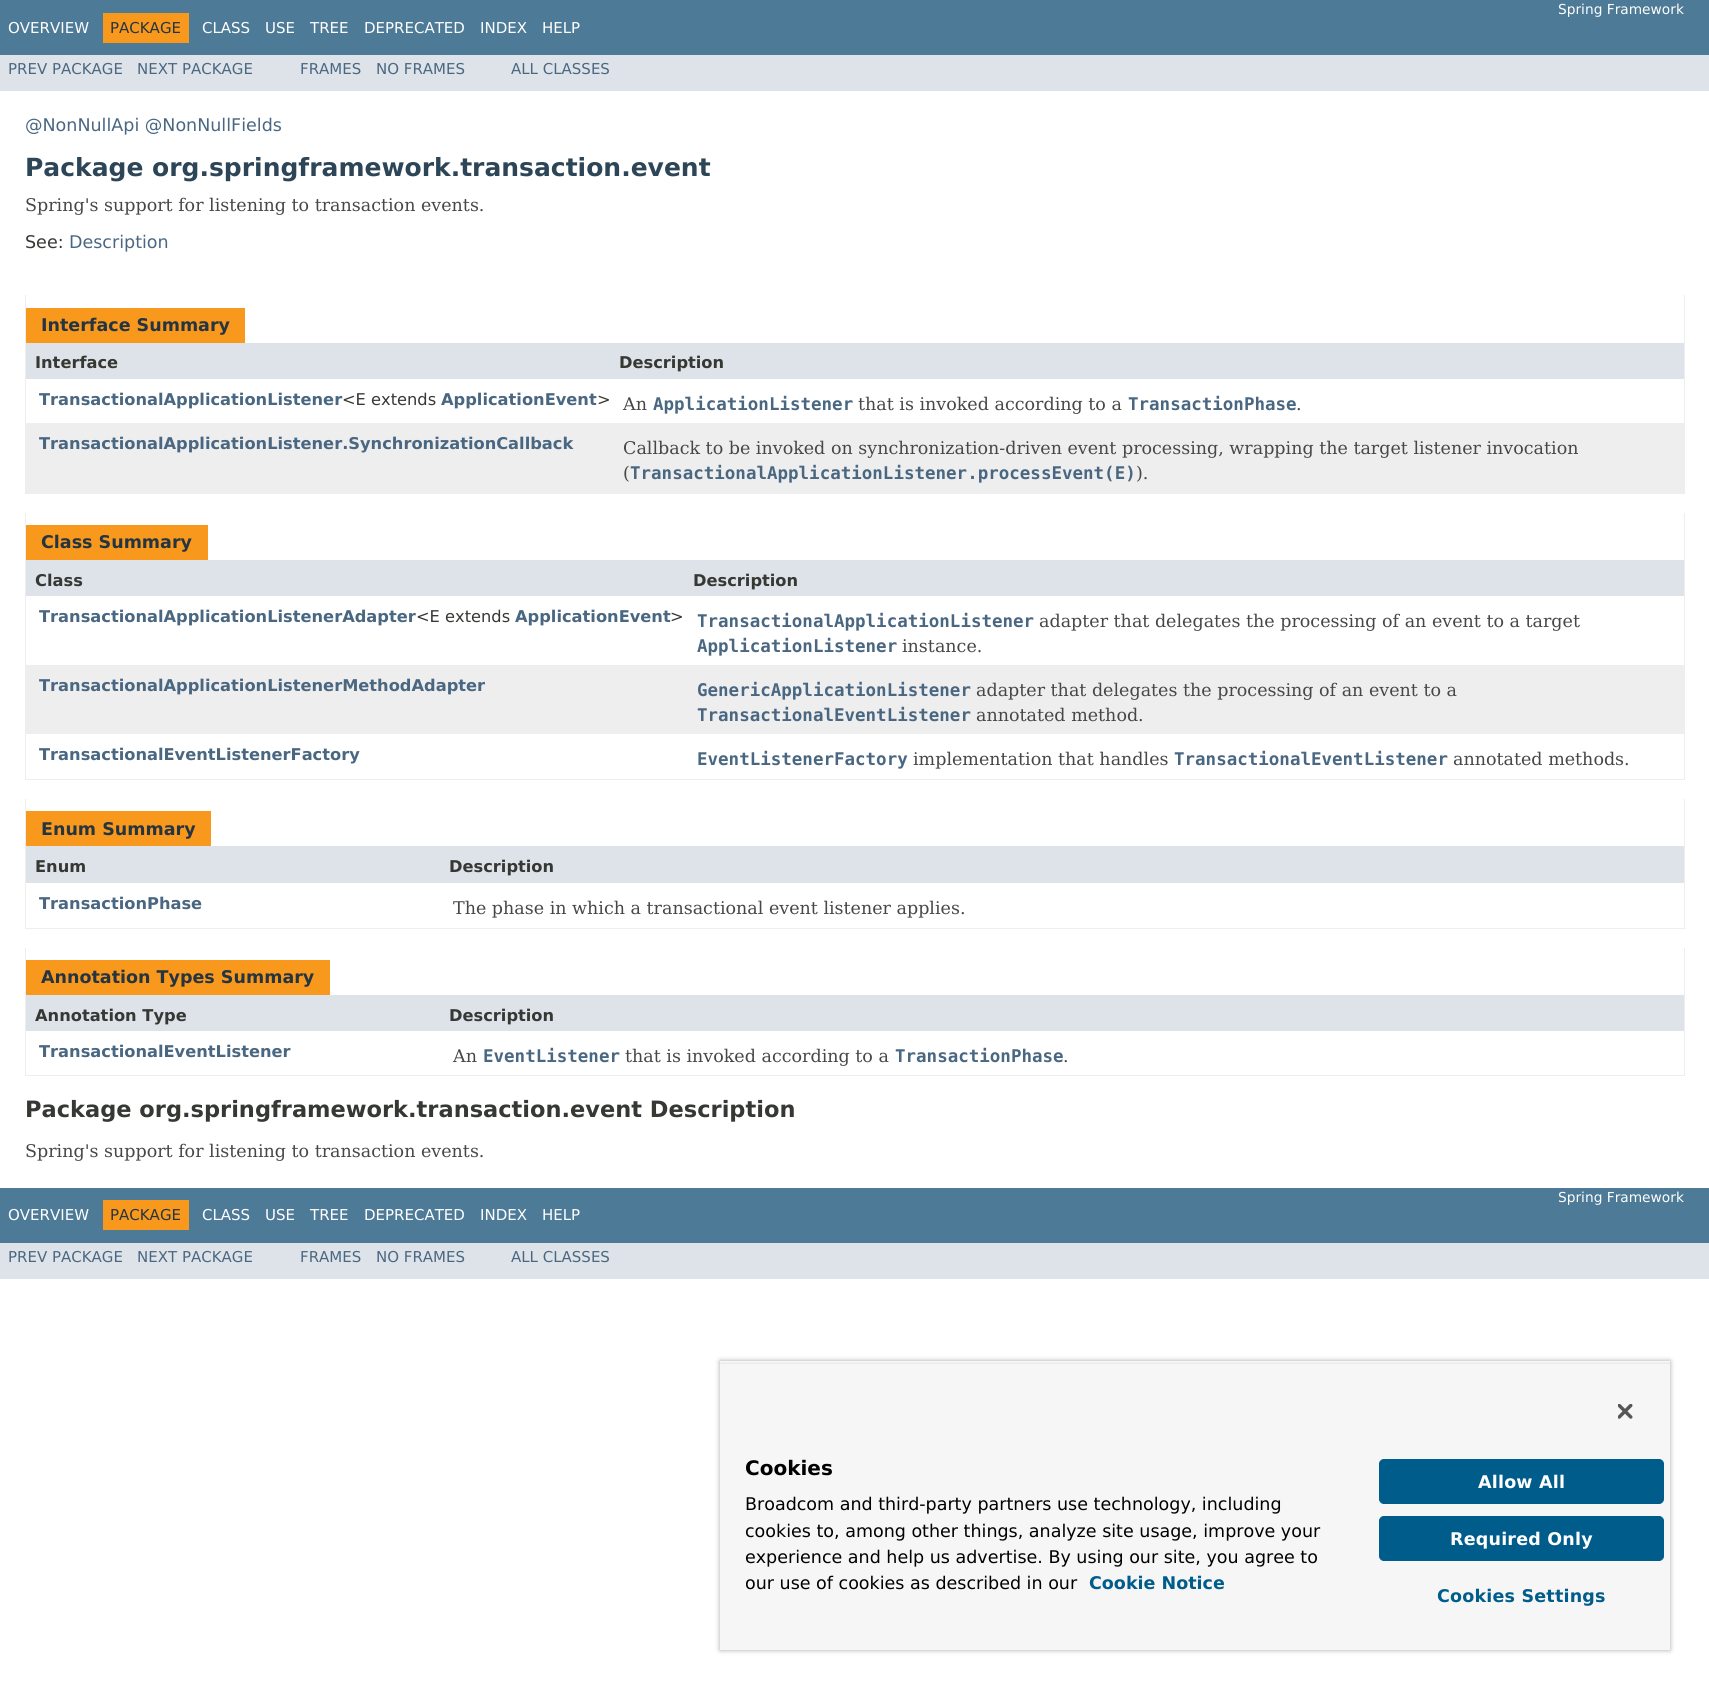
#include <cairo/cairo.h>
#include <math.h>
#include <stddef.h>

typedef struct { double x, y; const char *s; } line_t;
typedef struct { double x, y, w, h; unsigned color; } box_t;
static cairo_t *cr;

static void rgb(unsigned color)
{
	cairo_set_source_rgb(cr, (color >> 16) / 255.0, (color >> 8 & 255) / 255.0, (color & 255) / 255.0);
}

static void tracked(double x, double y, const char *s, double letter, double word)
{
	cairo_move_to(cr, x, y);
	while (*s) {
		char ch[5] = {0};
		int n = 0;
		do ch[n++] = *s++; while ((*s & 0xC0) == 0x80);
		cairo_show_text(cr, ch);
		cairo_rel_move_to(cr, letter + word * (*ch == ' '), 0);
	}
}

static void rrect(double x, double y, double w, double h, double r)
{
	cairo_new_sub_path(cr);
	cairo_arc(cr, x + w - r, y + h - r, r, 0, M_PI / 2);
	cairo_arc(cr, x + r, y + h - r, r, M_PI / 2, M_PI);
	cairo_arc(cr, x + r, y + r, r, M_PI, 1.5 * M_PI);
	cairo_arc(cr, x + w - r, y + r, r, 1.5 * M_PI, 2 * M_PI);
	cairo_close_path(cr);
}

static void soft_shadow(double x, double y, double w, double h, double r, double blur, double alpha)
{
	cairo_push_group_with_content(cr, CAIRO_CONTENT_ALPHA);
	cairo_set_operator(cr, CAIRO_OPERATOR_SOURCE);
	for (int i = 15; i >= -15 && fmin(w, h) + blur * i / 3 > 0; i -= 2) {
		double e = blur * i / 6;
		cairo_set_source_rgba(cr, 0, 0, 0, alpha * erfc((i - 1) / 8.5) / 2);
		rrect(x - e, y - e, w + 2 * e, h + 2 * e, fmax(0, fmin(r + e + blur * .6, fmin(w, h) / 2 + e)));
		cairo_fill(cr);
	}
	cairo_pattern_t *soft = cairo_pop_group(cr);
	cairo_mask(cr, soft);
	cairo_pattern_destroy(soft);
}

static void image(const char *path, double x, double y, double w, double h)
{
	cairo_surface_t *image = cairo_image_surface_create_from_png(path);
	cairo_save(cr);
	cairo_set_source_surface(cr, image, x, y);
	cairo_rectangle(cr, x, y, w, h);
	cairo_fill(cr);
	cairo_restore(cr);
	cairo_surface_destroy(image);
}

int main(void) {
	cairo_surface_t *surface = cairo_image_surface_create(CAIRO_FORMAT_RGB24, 1709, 1690);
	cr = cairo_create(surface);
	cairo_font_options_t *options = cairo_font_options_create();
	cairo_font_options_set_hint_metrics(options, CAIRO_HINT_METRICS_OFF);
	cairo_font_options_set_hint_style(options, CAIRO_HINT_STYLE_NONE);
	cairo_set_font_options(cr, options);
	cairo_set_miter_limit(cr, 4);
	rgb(0xffffff);
	cairo_paint(cr);
	{
		static const box_t items[] = {
			{0, 0, 1709, 55, 0x4d7a97},
			{103, 13, 86, 30, 0xf8981d},
			{0, 55, 1709, 36, 0xdee3e9},
			{1684, 295, 1, 199, 0xeeeeee},
			{25, 493, 1660, 1, 0xeeeeee},
			{25, 295, 1, 199, 0xeeeeee},
			{26, 308, 219, 35, 0xf8981d},
			{26, 343, 1658, 36, 0xdee3e9},
			{26, 423, 1658, 70, 0xeeeeef},
			{1684, 513, 1, 267, 0xeeeeee},
			{25, 779, 1660, 1, 0xeeeeee},
			{25, 513, 1, 267, 0xeeeeee},
			{26, 525, 182, 35, 0xf8981d},
			{26, 560, 1658, 36, 0xdee3e9},
			{26, 665, 1658, 69, 0xeeeeef},
			{1684, 799, 1, 130, 0xeeeeee},
			{25, 928, 1660, 1, 0xeeeeee},
			{25, 799, 1, 130, 0xeeeeee},
			{26, 811, 185, 35, 0xf8981d},
			{26, 846, 1658, 37, 0xdee3e9},
			{1684, 948, 1, 128, 0xeeeeee},
			{25, 1075, 1660, 1, 0xeeeeee},
			{25, 948, 1, 128, 0xeeeeee},
			{26, 960, 304, 35, 0xf8981d},
			{26, 995, 1658, 36, 0xdee3e9},
			{0, 1188, 1709, 55, 0x4d7a97},
			{103, 1200, 86, 30, 0xf8981d},
			{0, 1243, 1709, 36, 0xdee3e9},
		};
		for (size_t i = 0; i < sizeof items / sizeof *items; i++) {
			rgb(items[i].color);
			cairo_rectangle(cr, items[i].x, items[i].y, items[i].w, items[i].h);
			cairo_fill(cr);
		}
	}
	cairo_save(cr);
	cairo_set_fill_rule(cr, CAIRO_FILL_RULE_EVEN_ODD);
	cairo_new_path(cr);
	cairo_move_to(cr, 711, 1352);
	cairo_line_to(cr, 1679, 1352);
	cairo_line_to(cr, 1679, 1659);
	cairo_line_to(cr, 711, 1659);
	cairo_close_path(cr);
	cairo_move_to(cr, 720, 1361);
	cairo_line_to(cr, 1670, 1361);
	cairo_line_to(cr, 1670, 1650);
	cairo_line_to(cr, 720, 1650);
	cairo_close_path(cr);
	cairo_clip(cr);
	rgb(0x000000);
	soft_shadow(720, 1361, 950, 289, 0, 2.5, 0.35);
	cairo_restore(cr);
	cairo_save(cr);
	cairo_rectangle(cr, 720, 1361, 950, 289);
	cairo_clip(cr);
	rgb(0x000000);
	soft_shadow(720, 1364, 950, 286, 0, 2.5, 0.2);
	cairo_restore(cr);
	rgb(0xf6f6f6);
	cairo_rectangle(cr, 720, 1364, 950, 286);
	cairo_fill(cr);
	image("img/1.png", 1618, 1404, 15, 15);
	rgb(0x005c8a);
	rrect(1379.5, 1459.5, 284, 44, 4.5);
	cairo_fill_preserve(cr);
	cairo_set_line_width(cr, 1);
	cairo_stroke(cr);
	rrect(1379.5, 1516.5, 284, 44, 4.5);
	cairo_fill_preserve(cr);
	cairo_stroke(cr);
	cairo_select_font_face(cr, "DejaVu Sans", CAIRO_FONT_SLANT_NORMAL, CAIRO_FONT_WEIGHT_NORMAL);
	cairo_set_font_size(cr, 13.75);
	rgb(0xffffff);
	cairo_move_to(cr, 1558, 14);
	cairo_show_text(cr, "Spring Framework");
	cairo_set_font_size(cr, 15);
	cairo_move_to(cr, 8, 33);
	cairo_show_text(cr, "OVERVIEW");
	rgb(0x253441);
	cairo_move_to(cr, 110, 33);
	cairo_show_text(cr, "PACKAGE");
	rgb(0xffffff);
	{
		static const line_t items[] = {
			{202, 33, "CLASS"},
			{265, 33, "USE"},
			{310, 33, "TREE"},
			{364, 33, "DEPRECATED"},
			{480, 33, "INDEX"},
			{542, 33, "HELP"},
		};
		for (size_t i = 0; i < sizeof items / sizeof *items; i++) {
			cairo_move_to(cr, items[i].x, items[i].y);
			cairo_show_text(cr, items[i].s);
		}
	}
	rgb(0x4a6782);
	{
		static const line_t items[] = {
			{8, 74, "PREV PACKAGE"},
			{137, 74, "NEXT PACKAGE"},
			{300, 74, "FRAMES"},
			{376, 74, "NO FRAMES"},
			{511, 74, "ALL CLASSES"},
		};
		for (size_t i = 0; i < sizeof items / sizeof *items; i++) {
			cairo_move_to(cr, items[i].x, items[i].y);
			cairo_show_text(cr, items[i].s);
		}
	}
	cairo_set_font_size(cr, 17.5);
	cairo_move_to(cr, 25, 131);
	cairo_show_text(cr, "@NonNullApi @NonNullFields");
	cairo_select_font_face(cr, "DejaVu Sans", CAIRO_FONT_SLANT_NORMAL, CAIRO_FONT_WEIGHT_BOLD);
	cairo_set_font_size(cr, 25);
	rgb(0x2c4557);
	cairo_move_to(cr, 25, 176);
	cairo_show_text(cr, "Package org.springframework.transaction.event");
	cairo_select_font_face(cr, "DejaVu Serif", CAIRO_FONT_SLANT_NORMAL, CAIRO_FONT_WEIGHT_NORMAL);
	cairo_set_font_size(cr, 17.5);
	rgb(0x474747);
	cairo_move_to(cr, 25, 211);
	cairo_show_text(cr, "Spring's support for listening to transaction events.");
	cairo_select_font_face(cr, "DejaVu Sans", CAIRO_FONT_SLANT_NORMAL, CAIRO_FONT_WEIGHT_NORMAL);
	rgb(0x353833);
	cairo_move_to(cr, 25, 248);
	cairo_show_text(cr, "See:");
	rgb(0x4a6782);
	cairo_move_to(cr, 69, 248);
	cairo_show_text(cr, "Description");
	cairo_select_font_face(cr, "DejaVu Sans", CAIRO_FONT_SLANT_NORMAL, CAIRO_FONT_WEIGHT_BOLD);
	rgb(0x253441);
	cairo_move_to(cr, 41, 331);
	cairo_show_text(cr, "Interface Summary");
	cairo_set_font_size(cr, 16.25);
	rgb(0x353833);
	cairo_move_to(cr, 35, 368);
	cairo_show_text(cr, "Interface");
	cairo_move_to(cr, 619, 368);
	cairo_show_text(cr, "Description");
	rgb(0x4a6782);
	cairo_move_to(cr, 39, 405);
	cairo_show_text(cr, "TransactionalApplicationListener");
	cairo_select_font_face(cr, "DejaVu Sans", CAIRO_FONT_SLANT_NORMAL, CAIRO_FONT_WEIGHT_NORMAL);
	rgb(0x353833);
	cairo_move_to(cr, 342, 405);
	cairo_show_text(cr, "<E extends");
	cairo_select_font_face(cr, "DejaVu Sans", CAIRO_FONT_SLANT_NORMAL, CAIRO_FONT_WEIGHT_BOLD);
	rgb(0x4a6782);
	cairo_move_to(cr, 441, 405);
	cairo_show_text(cr, "ApplicationEvent");
	cairo_select_font_face(cr, "DejaVu Sans", CAIRO_FONT_SLANT_NORMAL, CAIRO_FONT_WEIGHT_NORMAL);
	rgb(0x353833);
	cairo_move_to(cr, 597, 405);
	cairo_show_text(cr, ">");
	cairo_select_font_face(cr, "DejaVu Serif", CAIRO_FONT_SLANT_NORMAL, CAIRO_FONT_WEIGHT_NORMAL);
	cairo_set_font_size(cr, 17.5);
	rgb(0x474747);
	cairo_move_to(cr, 623, 410);
	cairo_show_text(cr, "An");
	cairo_select_font_face(cr, "DejaVu Sans Mono", CAIRO_FONT_SLANT_NORMAL, CAIRO_FONT_WEIGHT_BOLD);
	rgb(0x4a6782);
	cairo_move_to(cr, 653, 410);
	cairo_show_text(cr, "ApplicationListener");
	cairo_select_font_face(cr, "DejaVu Serif", CAIRO_FONT_SLANT_NORMAL, CAIRO_FONT_WEIGHT_NORMAL);
	rgb(0x474747);
	cairo_move_to(cr, 858, 410);
	cairo_show_text(cr, "that is invoked according to a");
	cairo_select_font_face(cr, "DejaVu Sans Mono", CAIRO_FONT_SLANT_NORMAL, CAIRO_FONT_WEIGHT_BOLD);
	rgb(0x4a6782);
	cairo_move_to(cr, 1128, 410);
	cairo_show_text(cr, "TransactionPhase");
	cairo_select_font_face(cr, "DejaVu Serif", CAIRO_FONT_SLANT_NORMAL, CAIRO_FONT_WEIGHT_NORMAL);
	rgb(0x474747);
	cairo_move_to(cr, 1296, 410);
	cairo_show_text(cr, ".");
	cairo_select_font_face(cr, "DejaVu Sans", CAIRO_FONT_SLANT_NORMAL, CAIRO_FONT_WEIGHT_BOLD);
	cairo_set_font_size(cr, 16.25);
	rgb(0x4a6782);
	cairo_move_to(cr, 39, 449);
	cairo_show_text(cr, "TransactionalApplicationListener.SynchronizationCallback");
	cairo_select_font_face(cr, "DejaVu Serif", CAIRO_FONT_SLANT_NORMAL, CAIRO_FONT_WEIGHT_NORMAL);
	cairo_set_font_size(cr, 17.5);
	rgb(0x474747);
	cairo_move_to(cr, 623, 454);
	cairo_show_text(cr, "Callback to be invoked on synchronization-driven event processing, wrapping the target listener invocation");
	cairo_move_to(cr, 623, 479);
	cairo_show_text(cr, "(");
	cairo_select_font_face(cr, "DejaVu Sans Mono", CAIRO_FONT_SLANT_NORMAL, CAIRO_FONT_WEIGHT_BOLD);
	rgb(0x4a6782);
	cairo_move_to(cr, 630, 479);
	cairo_show_text(cr, "TransactionalApplicationListener.processEvent(E)");
	cairo_select_font_face(cr, "DejaVu Serif", CAIRO_FONT_SLANT_NORMAL, CAIRO_FONT_WEIGHT_NORMAL);
	rgb(0x474747);
	cairo_move_to(cr, 1136, 479);
	cairo_show_text(cr, ").");
	cairo_select_font_face(cr, "DejaVu Sans", CAIRO_FONT_SLANT_NORMAL, CAIRO_FONT_WEIGHT_BOLD);
	rgb(0x253441);
	cairo_move_to(cr, 41, 548);
	cairo_show_text(cr, "Class Summary");
	cairo_set_font_size(cr, 16.25);
	rgb(0x353833);
	cairo_move_to(cr, 35, 586);
	cairo_show_text(cr, "Class");
	cairo_move_to(cr, 693, 586);
	cairo_show_text(cr, "Description");
	rgb(0x4a6782);
	cairo_move_to(cr, 39, 622);
	cairo_show_text(cr, "TransactionalApplicationListenerAdapter");
	cairo_select_font_face(cr, "DejaVu Sans", CAIRO_FONT_SLANT_NORMAL, CAIRO_FONT_WEIGHT_NORMAL);
	rgb(0x353833);
	cairo_move_to(cr, 416, 622);
	cairo_show_text(cr, "<E extends");
	cairo_select_font_face(cr, "DejaVu Sans", CAIRO_FONT_SLANT_NORMAL, CAIRO_FONT_WEIGHT_BOLD);
	rgb(0x4a6782);
	cairo_move_to(cr, 515, 622);
	cairo_show_text(cr, "ApplicationEvent");
	cairo_select_font_face(cr, "DejaVu Sans", CAIRO_FONT_SLANT_NORMAL, CAIRO_FONT_WEIGHT_NORMAL);
	rgb(0x353833);
	cairo_move_to(cr, 670, 622);
	cairo_show_text(cr, ">");
	cairo_select_font_face(cr, "DejaVu Sans Mono", CAIRO_FONT_SLANT_NORMAL, CAIRO_FONT_WEIGHT_BOLD);
	cairo_set_font_size(cr, 17.5);
	rgb(0x4a6782);
	cairo_move_to(cr, 697, 627);
	cairo_show_text(cr, "TransactionalApplicationListener");
	cairo_select_font_face(cr, "DejaVu Serif", CAIRO_FONT_SLANT_NORMAL, CAIRO_FONT_WEIGHT_NORMAL);
	rgb(0x474747);
	cairo_move_to(cr, 1039, 627);
	cairo_show_text(cr, "adapter that delegates the processing of an event to a target");
	cairo_select_font_face(cr, "DejaVu Sans Mono", CAIRO_FONT_SLANT_NORMAL, CAIRO_FONT_WEIGHT_BOLD);
	rgb(0x4a6782);
	cairo_move_to(cr, 697, 652);
	cairo_show_text(cr, "ApplicationListener");
	cairo_select_font_face(cr, "DejaVu Serif", CAIRO_FONT_SLANT_NORMAL, CAIRO_FONT_WEIGHT_NORMAL);
	rgb(0x474747);
	cairo_move_to(cr, 902, 652);
	cairo_show_text(cr, "instance.");
	cairo_select_font_face(cr, "DejaVu Sans", CAIRO_FONT_SLANT_NORMAL, CAIRO_FONT_WEIGHT_BOLD);
	cairo_set_font_size(cr, 16.25);
	rgb(0x4a6782);
	cairo_move_to(cr, 39, 691);
	cairo_show_text(cr, "TransactionalApplicationListenerMethodAdapter");
	cairo_select_font_face(cr, "DejaVu Sans Mono", CAIRO_FONT_SLANT_NORMAL, CAIRO_FONT_WEIGHT_BOLD);
	cairo_set_font_size(cr, 17.5);
	cairo_move_to(cr, 697, 696);
	cairo_show_text(cr, "GenericApplicationListener");
	cairo_select_font_face(cr, "DejaVu Serif", CAIRO_FONT_SLANT_NORMAL, CAIRO_FONT_WEIGHT_NORMAL);
	rgb(0x474747);
	cairo_move_to(cr, 976, 696);
	cairo_show_text(cr, "adapter that delegates the processing of an event to a");
	cairo_select_font_face(cr, "DejaVu Sans Mono", CAIRO_FONT_SLANT_NORMAL, CAIRO_FONT_WEIGHT_BOLD);
	rgb(0x4a6782);
	cairo_move_to(cr, 697, 721);
	cairo_show_text(cr, "TransactionalEventListener");
	cairo_select_font_face(cr, "DejaVu Serif", CAIRO_FONT_SLANT_NORMAL, CAIRO_FONT_WEIGHT_NORMAL);
	rgb(0x474747);
	cairo_move_to(cr, 976, 721);
	cairo_show_text(cr, "annotated method.");
	cairo_select_font_face(cr, "DejaVu Sans", CAIRO_FONT_SLANT_NORMAL, CAIRO_FONT_WEIGHT_BOLD);
	cairo_set_font_size(cr, 16.25);
	rgb(0x4a6782);
	cairo_move_to(cr, 39, 760);
	cairo_show_text(cr, "TransactionalEventListenerFactory");
	cairo_select_font_face(cr, "DejaVu Sans Mono", CAIRO_FONT_SLANT_NORMAL, CAIRO_FONT_WEIGHT_BOLD);
	cairo_set_font_size(cr, 17.5);
	cairo_move_to(cr, 697, 765);
	cairo_show_text(cr, "EventListenerFactory");
	cairo_select_font_face(cr, "DejaVu Serif", CAIRO_FONT_SLANT_NORMAL, CAIRO_FONT_WEIGHT_NORMAL);
	rgb(0x474747);
	cairo_move_to(cr, 913, 765);
	cairo_show_text(cr, "implementation that handles");
	cairo_select_font_face(cr, "DejaVu Sans Mono", CAIRO_FONT_SLANT_NORMAL, CAIRO_FONT_WEIGHT_BOLD);
	rgb(0x4a6782);
	cairo_move_to(cr, 1174, 765);
	cairo_show_text(cr, "TransactionalEventListener");
	cairo_select_font_face(cr, "DejaVu Serif", CAIRO_FONT_SLANT_NORMAL, CAIRO_FONT_WEIGHT_NORMAL);
	rgb(0x474747);
	cairo_move_to(cr, 1453, 765);
	cairo_show_text(cr, "annotated methods.");
	cairo_select_font_face(cr, "DejaVu Sans", CAIRO_FONT_SLANT_NORMAL, CAIRO_FONT_WEIGHT_BOLD);
	rgb(0x253441);
	cairo_move_to(cr, 41, 835);
	cairo_show_text(cr, "Enum Summary");
	cairo_set_font_size(cr, 16.25);
	rgb(0x353833);
	cairo_move_to(cr, 35, 872);
	cairo_show_text(cr, "Enum");
	cairo_move_to(cr, 449, 872);
	cairo_show_text(cr, "Description");
	rgb(0x4a6782);
	cairo_move_to(cr, 39, 909);
	cairo_show_text(cr, "TransactionPhase");
	cairo_select_font_face(cr, "DejaVu Serif", CAIRO_FONT_SLANT_NORMAL, CAIRO_FONT_WEIGHT_NORMAL);
	cairo_set_font_size(cr, 17.5);
	rgb(0x474747);
	cairo_move_to(cr, 453, 914);
	cairo_show_text(cr, "The phase in which a transactional event listener applies.");
	cairo_select_font_face(cr, "DejaVu Sans", CAIRO_FONT_SLANT_NORMAL, CAIRO_FONT_WEIGHT_BOLD);
	rgb(0x253441);
	cairo_move_to(cr, 41, 983);
	cairo_show_text(cr, "Annotation Types Summary");
	cairo_set_font_size(cr, 16.25);
	rgb(0x353833);
	cairo_move_to(cr, 35, 1021);
	cairo_show_text(cr, "Annotation Type");
	cairo_move_to(cr, 449, 1021);
	cairo_show_text(cr, "Description");
	rgb(0x4a6782);
	cairo_move_to(cr, 39, 1057);
	cairo_show_text(cr, "TransactionalEventListener");
	cairo_select_font_face(cr, "DejaVu Serif", CAIRO_FONT_SLANT_NORMAL, CAIRO_FONT_WEIGHT_NORMAL);
	cairo_set_font_size(cr, 17.5);
	rgb(0x474747);
	cairo_move_to(cr, 453, 1062);
	cairo_show_text(cr, "An");
	cairo_select_font_face(cr, "DejaVu Sans Mono", CAIRO_FONT_SLANT_NORMAL, CAIRO_FONT_WEIGHT_BOLD);
	rgb(0x4a6782);
	cairo_move_to(cr, 483, 1062);
	cairo_show_text(cr, "EventListener");
	cairo_select_font_face(cr, "DejaVu Serif", CAIRO_FONT_SLANT_NORMAL, CAIRO_FONT_WEIGHT_NORMAL);
	rgb(0x474747);
	cairo_move_to(cr, 625, 1062);
	cairo_show_text(cr, "that is invoked according to a");
	cairo_select_font_face(cr, "DejaVu Sans Mono", CAIRO_FONT_SLANT_NORMAL, CAIRO_FONT_WEIGHT_BOLD);
	rgb(0x4a6782);
	cairo_move_to(cr, 895, 1062);
	cairo_show_text(cr, "TransactionPhase");
	cairo_select_font_face(cr, "DejaVu Serif", CAIRO_FONT_SLANT_NORMAL, CAIRO_FONT_WEIGHT_NORMAL);
	rgb(0x474747);
	cairo_move_to(cr, 1063, 1062);
	cairo_show_text(cr, ".");
	cairo_select_font_face(cr, "DejaVu Sans", CAIRO_FONT_SLANT_NORMAL, CAIRO_FONT_WEIGHT_BOLD);
	cairo_set_font_size(cr, 22.5);
	rgb(0x353833);
	cairo_move_to(cr, 25, 1117);
	cairo_show_text(cr, "Package org.springframework.transaction.event Description");
	cairo_select_font_face(cr, "DejaVu Serif", CAIRO_FONT_SLANT_NORMAL, CAIRO_FONT_WEIGHT_NORMAL);
	cairo_set_font_size(cr, 17.5);
	rgb(0x474747);
	cairo_move_to(cr, 25, 1157);
	cairo_show_text(cr, "Spring's support for listening to transaction events.");
	cairo_select_font_face(cr, "DejaVu Sans", CAIRO_FONT_SLANT_NORMAL, CAIRO_FONT_WEIGHT_NORMAL);
	cairo_set_font_size(cr, 13.75);
	rgb(0xffffff);
	cairo_move_to(cr, 1558, 1202);
	cairo_show_text(cr, "Spring Framework");
	cairo_set_font_size(cr, 15);
	cairo_move_to(cr, 8, 1220);
	cairo_show_text(cr, "OVERVIEW");
	rgb(0x253441);
	cairo_move_to(cr, 110, 1220);
	cairo_show_text(cr, "PACKAGE");
	rgb(0xffffff);
	{
		static const line_t items[] = {
			{202, 1220, "CLASS"},
			{265, 1220, "USE"},
			{310, 1220, "TREE"},
			{364, 1220, "DEPRECATED"},
			{480, 1220, "INDEX"},
			{542, 1220, "HELP"},
		};
		for (size_t i = 0; i < sizeof items / sizeof *items; i++) {
			cairo_move_to(cr, items[i].x, items[i].y);
			cairo_show_text(cr, items[i].s);
		}
	}
	rgb(0x4a6782);
	{
		static const line_t items[] = {
			{8, 1262, "PREV PACKAGE"},
			{137, 1262, "NEXT PACKAGE"},
			{300, 1262, "FRAMES"},
			{376, 1262, "NO FRAMES"},
			{511, 1262, "ALL CLASSES"},
		};
		for (size_t i = 0; i < sizeof items / sizeof *items; i++) {
			cairo_move_to(cr, items[i].x, items[i].y);
			cairo_show_text(cr, items[i].s);
		}
	}
	cairo_select_font_face(cr, "DejaVu Sans", CAIRO_FONT_SLANT_NORMAL, CAIRO_FONT_WEIGHT_BOLD);
	cairo_set_font_size(cr, 20);
	rgb(0x000000);
	cairo_move_to(cr, 745, 1475);
	cairo_show_text(cr, "Cookies");
	cairo_select_font_face(cr, "DejaVu Sans", CAIRO_FONT_SLANT_NORMAL, CAIRO_FONT_WEIGHT_NORMAL);
	cairo_set_font_size(cr, 17.5);
	{
		static const line_t items[] = {
			{745, 1510, "Broadcom and third-party partners use technology, including"},
			{745, 1537, "cookies to, among other things, analyze site usage, improve your"},
			{745, 1563, "experience and help us advertise. By using our site, you agree to"},
			{745, 1589, "our use of cookies as described in our"},
		};
		for (size_t i = 0; i < sizeof items / sizeof *items; i++) {
			cairo_move_to(cr, items[i].x, items[i].y);
			cairo_show_text(cr, items[i].s);
		}
	}
	cairo_select_font_face(cr, "DejaVu Sans", CAIRO_FONT_SLANT_NORMAL, CAIRO_FONT_WEIGHT_BOLD);
	rgb(0x005c8a);
	cairo_move_to(cr, 1089, 1589);
	cairo_show_text(cr, "Cookie Notice");
	rgb(0xffffff);
	tracked(1478, 1488, "Allow All", 0.2, 0);
	tracked(1450, 1545, "Required Only", 0.2, 0);
	rgb(0x005c8a);
	tracked(1437, 1602, "Cookies Settings", 0.2, 0);
	cairo_surface_write_to_png(surface, "page.png");
	cairo_font_options_destroy(options);
	cairo_destroy(cr);
	cairo_surface_destroy(surface);
	return 0;
}
